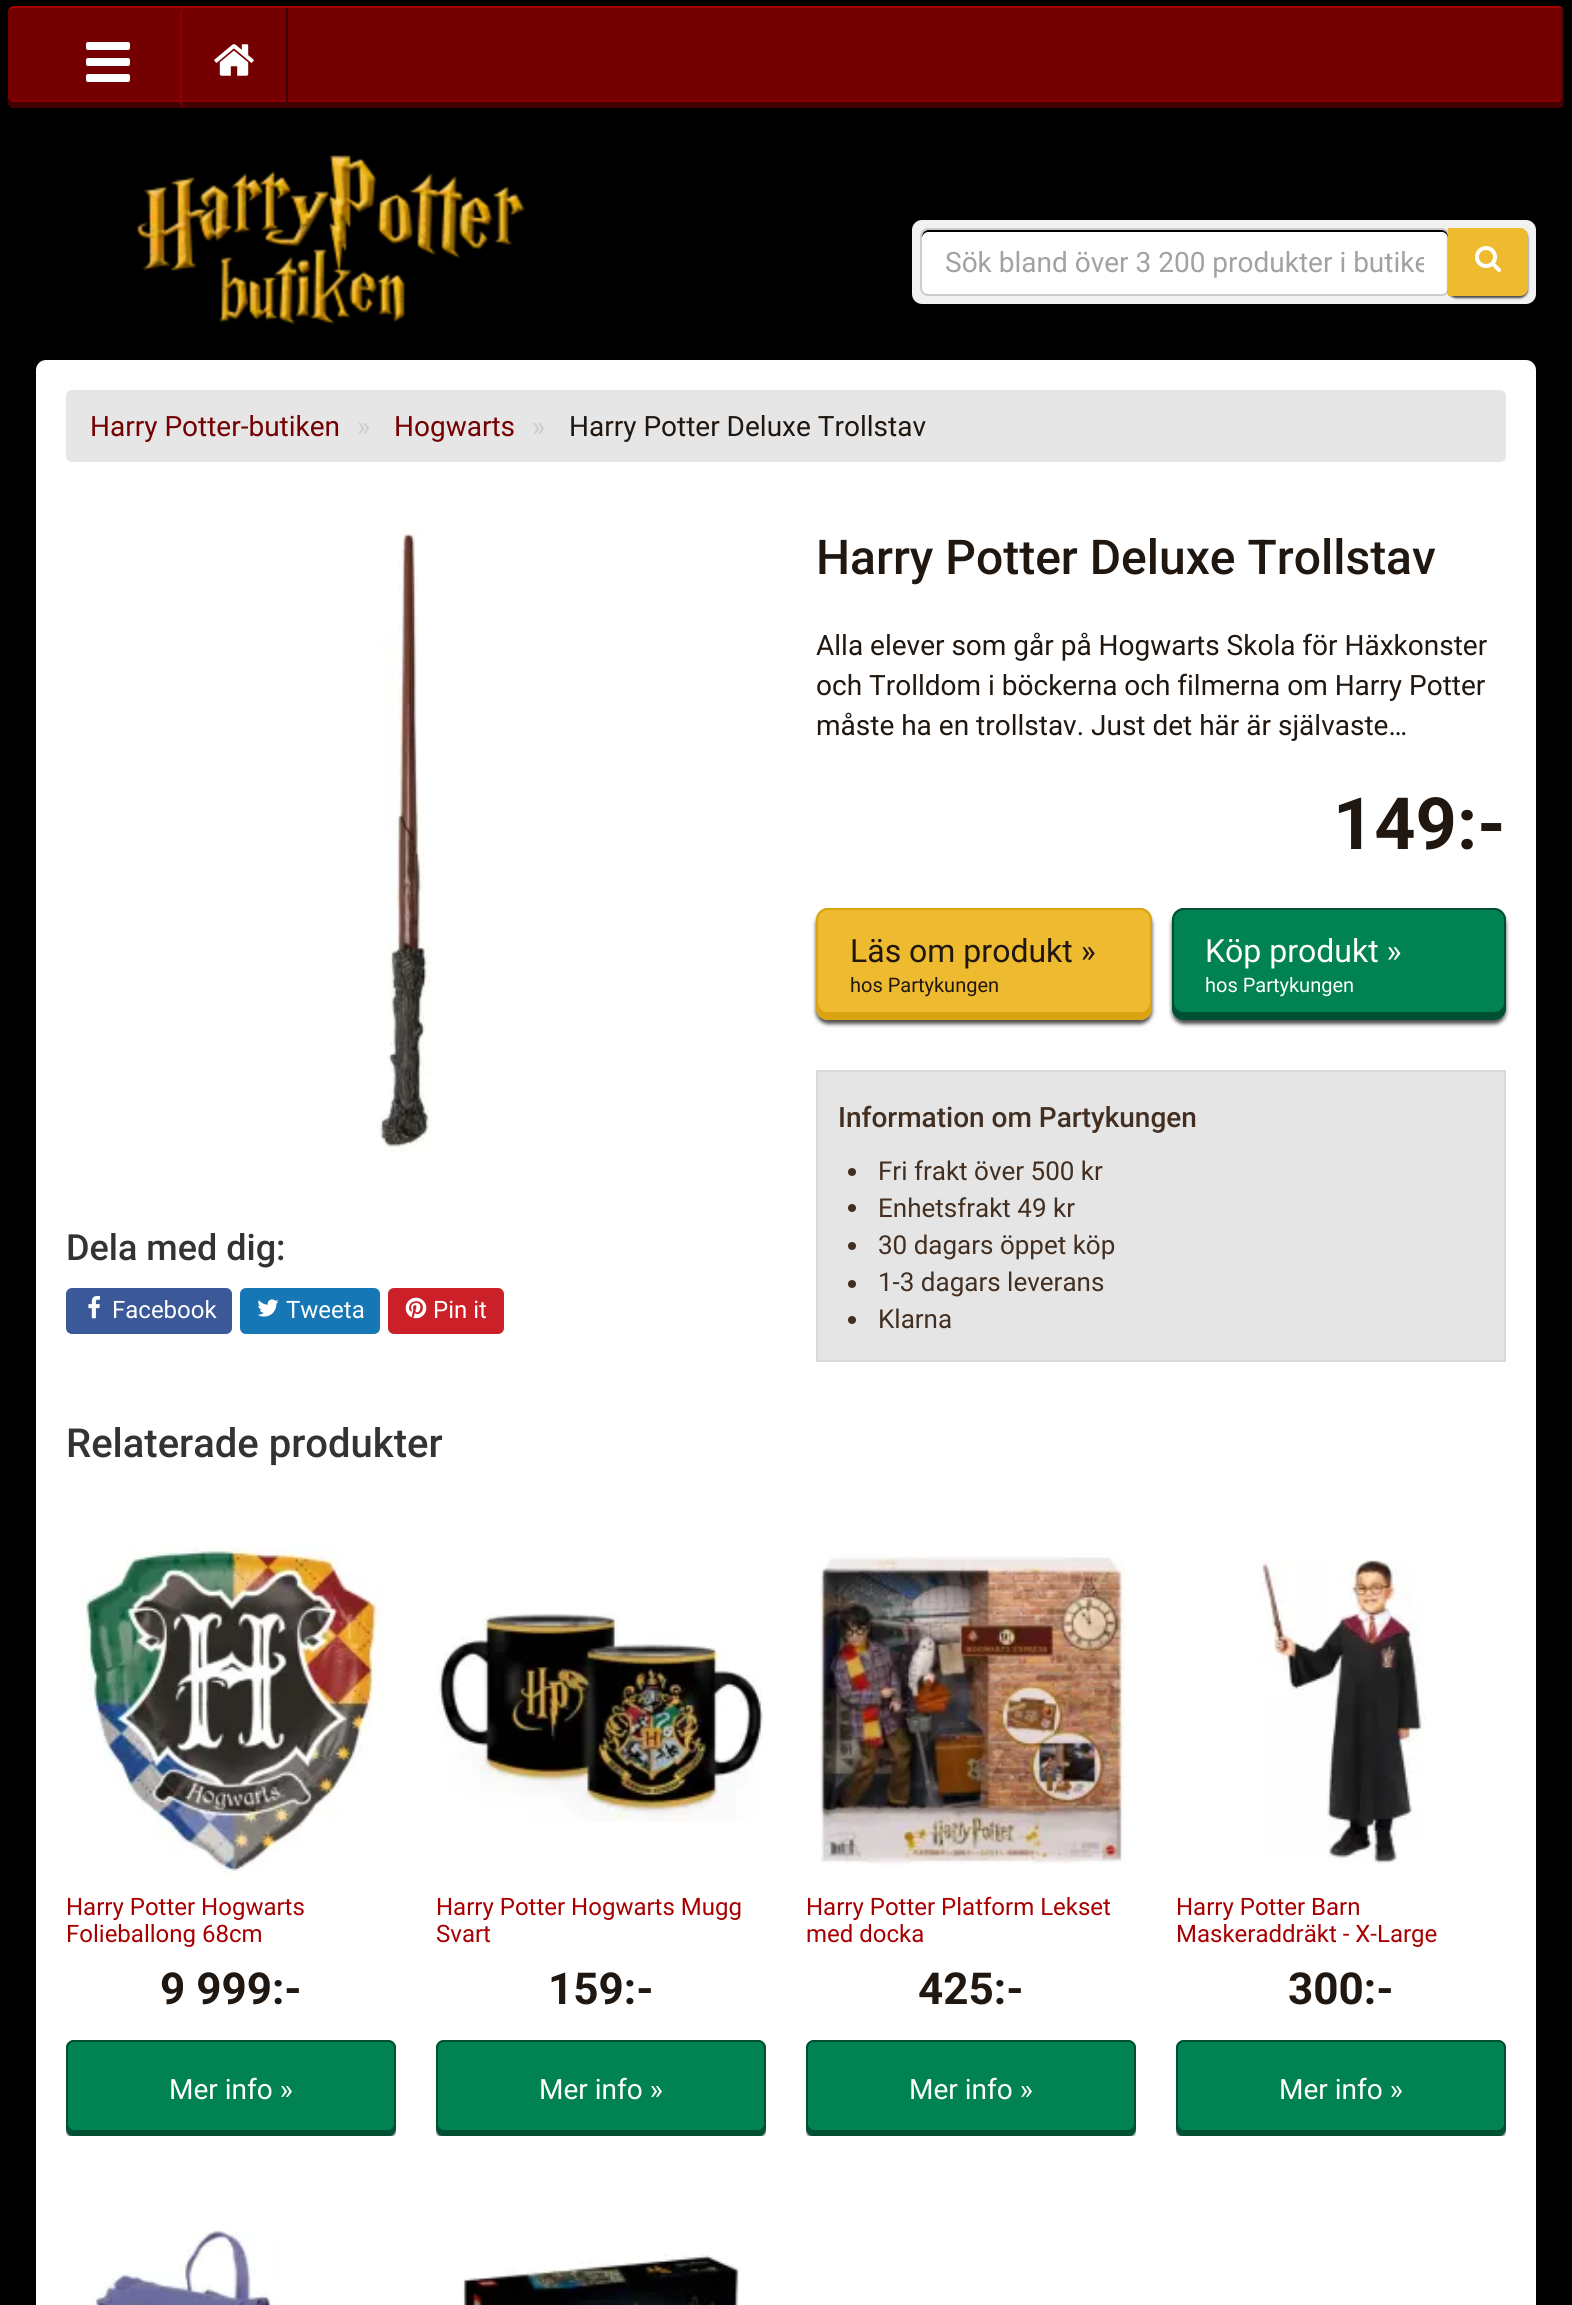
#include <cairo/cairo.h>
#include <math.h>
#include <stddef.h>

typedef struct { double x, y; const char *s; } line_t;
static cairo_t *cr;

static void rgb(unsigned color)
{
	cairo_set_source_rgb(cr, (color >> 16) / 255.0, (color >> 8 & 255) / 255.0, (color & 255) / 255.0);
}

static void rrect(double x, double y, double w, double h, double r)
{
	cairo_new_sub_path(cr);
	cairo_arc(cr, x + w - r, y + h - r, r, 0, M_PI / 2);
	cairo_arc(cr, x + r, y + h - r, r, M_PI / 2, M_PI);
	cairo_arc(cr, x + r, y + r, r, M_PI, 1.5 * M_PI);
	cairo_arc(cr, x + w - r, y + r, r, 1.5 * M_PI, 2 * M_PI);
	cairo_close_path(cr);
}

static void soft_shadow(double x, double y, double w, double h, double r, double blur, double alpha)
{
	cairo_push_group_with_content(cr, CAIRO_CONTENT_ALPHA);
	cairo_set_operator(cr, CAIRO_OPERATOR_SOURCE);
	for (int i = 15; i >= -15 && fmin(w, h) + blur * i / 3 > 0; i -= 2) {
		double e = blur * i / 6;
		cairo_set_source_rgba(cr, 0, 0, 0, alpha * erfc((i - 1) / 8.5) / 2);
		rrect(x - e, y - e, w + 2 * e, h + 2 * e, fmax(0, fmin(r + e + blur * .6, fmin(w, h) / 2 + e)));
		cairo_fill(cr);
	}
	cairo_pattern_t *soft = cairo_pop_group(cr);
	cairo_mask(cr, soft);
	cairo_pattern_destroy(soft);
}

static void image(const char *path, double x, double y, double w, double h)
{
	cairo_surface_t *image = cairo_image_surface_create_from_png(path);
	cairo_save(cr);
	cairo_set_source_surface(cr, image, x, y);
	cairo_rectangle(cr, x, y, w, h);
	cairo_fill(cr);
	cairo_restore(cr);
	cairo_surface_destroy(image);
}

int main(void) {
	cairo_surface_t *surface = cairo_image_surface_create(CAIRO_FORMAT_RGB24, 1572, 2305);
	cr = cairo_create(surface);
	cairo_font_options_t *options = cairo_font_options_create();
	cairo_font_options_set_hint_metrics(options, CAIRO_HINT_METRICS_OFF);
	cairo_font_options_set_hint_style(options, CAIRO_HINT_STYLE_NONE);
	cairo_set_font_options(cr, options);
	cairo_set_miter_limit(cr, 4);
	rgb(0x000000);
	cairo_paint(cr);
	rgb(0x740001);
	rrect(8, 6, 1556, 102, 6);
	cairo_fill(cr);
	rgb(0x8e0001);
	cairo_new_path(cr);
	cairo_move_to(cr, 8, 94);
	cairo_line_to(cr, 8, 102);
	cairo_curve_to(cr, 8, 105, 11, 108, 14, 108);
	cairo_line_to(cr, 1558, 108);
	cairo_curve_to(cr, 1560, 108, 1562, 105, 1562, 102);
	cairo_line_to(cr, 1562, 94);
	cairo_curve_to(cr, 1562, 97, 1560, 100, 1558, 100);
	cairo_line_to(cr, 14, 100);
	cairo_curve_to(cr, 11, 100, 8, 97, 8, 94);
	cairo_close_path(cr);
	cairo_fill(cr);
	rgb(0x410001);
	cairo_new_path(cr);
	cairo_move_to(cr, 8, 96);
	cairo_line_to(cr, 8, 102);
	cairo_curve_to(cr, 8, 105, 11, 108, 14, 108);
	cairo_line_to(cr, 1558, 108);
	cairo_curve_to(cr, 1560, 108, 1562, 105, 1562, 102);
	cairo_line_to(cr, 1562, 96);
	cairo_curve_to(cr, 1562, 99, 1560, 102, 1558, 102);
	cairo_line_to(cr, 14, 102);
	cairo_curve_to(cr, 11, 102, 8, 99, 8, 96);
	cairo_close_path(cr);
	cairo_fill(cr);
	rgb(0xa70001);
	cairo_new_path(cr);
	cairo_move_to(cr, 14, 6);
	cairo_curve_to(cr, 11, 6, 8, 9, 8, 12);
	cairo_curve_to(cr, 8, 10, 11, 8, 14, 8);
	cairo_line_to(cr, 1558, 8);
	cairo_curve_to(cr, 1559, 8, 1560, 8, 1561, 9);
	cairo_line_to(cr, 1562, 8);
	cairo_curve_to(cr, 1561, 7, 1560, 6, 1558, 6);
	cairo_close_path(cr);
	cairo_fill(cr);
	rgb(0x410001);
	cairo_new_path(cr);
	cairo_move_to(cr, 1564, 102);
	cairo_line_to(cr, 1564, 11);
	cairo_line_to(cr, 1562, 8);
	cairo_line_to(cr, 1561, 9);
	cairo_line_to(cr, 1562, 12);
	cairo_line_to(cr, 1562, 102);
	cairo_curve_to(cr, 1562, 104, 1561, 108, 1558, 108);
	cairo_curve_to(cr, 1561, 108, 1564, 105, 1564, 102);
	cairo_close_path(cr);
	cairo_fill(cr);
	rgb(0xffffff);
	rrect(86, 42, 44, 8, 2);
	cairo_fill(cr);
	rrect(86, 58, 44, 8, 2);
	cairo_fill(cr);
	rrect(86, 74, 44, 8, 2);
	cairo_fill(cr);
	rgb(0x410001);
	cairo_rectangle(cr, 286, 8, 2, 100);
	cairo_fill(cr);
	rgb(0x8e0001);
	cairo_new_path(cr);
	cairo_move_to(cr, 186, 8);
	cairo_curve_to(cr, 183, 8, 180, 11, 180, 14);
	cairo_line_to(cr, 180, 102);
	cairo_curve_to(cr, 180, 105, 183, 108, 186, 108);
	cairo_curve_to(cr, 184, 108, 182, 105, 182, 102);
	cairo_line_to(cr, 182, 14);
	cairo_curve_to(cr, 182, 11, 184, 8, 186, 8);
	cairo_close_path(cr);
	cairo_fill(cr);
	image("img/1.png", 214, 44, 40, 32);
	image("img/2.png", 137, 155, 388, 170);
	rgb(0xf2f2f2);
	rrect(912, 220, 624, 84, 10);
	cairo_fill(cr);
	rgb(0xffffff);
	rrect(920, 228, 530, 68, 8);
	cairo_fill(cr);
	rgb(0x000000);
	cairo_new_path(cr);
	cairo_move_to(cr, 928, 232);
	cairo_line_to(cr, 1442, 232);
	cairo_curve_to(cr, 1445, 232, 1448, 235, 1448, 238);
	cairo_line_to(cr, 1448, 236);
	cairo_curve_to(cr, 1448, 233, 1445, 230, 1442, 230);
	cairo_line_to(cr, 928, 230);
	cairo_curve_to(cr, 925, 230, 922, 233, 922, 236);
	cairo_line_to(cr, 922, 238);
	cairo_curve_to(cr, 922, 235, 925, 232, 928, 232);
	cairo_close_path(cr);
	cairo_fill(cr);
	rrect(921, 229, 528, 66, 7);
	rgb(0xcccccc);
	cairo_stroke(cr);
	rgb(0x000000);
	soft_shadow(1448, 230, 80, 68, 8, 1, 0.7);
	rgb(0xeeba30);
	cairo_new_path(cr);
	cairo_move_to(cr, 1448, 228);
	cairo_line_to(cr, 1520, 228);
	cairo_curve_to(cr, 1524.5, 228, 1528, 231.5, 1528, 236);
	cairo_line_to(cr, 1528, 288);
	cairo_curve_to(cr, 1528, 292.5, 1524.5, 296, 1520, 296);
	cairo_line_to(cr, 1448, 296);
	cairo_close_path(cr);
	cairo_fill(cr);
	image("img/3.png", 1475, 246, 26, 26);
	rgb(0xffffff);
	rrect(36, 360, 1500, 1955, 10);
	cairo_fill(cr);
	rgb(0xe6e6e6);
	rrect(66, 390, 1440, 72, 6);
	cairo_fill(cr);
	image("img/4.png", 377, 529, 55, 623);
	rgb(0x3b5998);
	rrect(66, 1288, 166, 46, 6);
	cairo_fill(cr);
	image("img/5.png", 88, 1296, 12, 23);
	rgb(0x1677b4);
	rrect(240, 1288, 140, 46, 6);
	cairo_fill(cr);
	image("img/6.png", 257, 1299, 22, 18);
	rgb(0xcb2027);
	rrect(388, 1288, 116, 46, 6);
	cairo_fill(cr);
	image("img/7.png", 405, 1297, 22, 22);
	rgb(0x000000);
	soft_shadow(816, 912, 336, 112, 12, 2, 0.7);
	rgb(0xeeba30);
	rrect(816, 908, 336, 112, 12);
	cairo_fill(cr);
	rgb(0xd9a312);
	cairo_new_path(cr);
	cairo_move_to(cr, 818, 1002);
	cairo_line_to(cr, 818, 1008);
	cairo_curve_to(cr, 818, 1014, 822, 1018, 828, 1018);
	cairo_line_to(cr, 1140, 1018);
	cairo_curve_to(cr, 1146, 1018, 1150, 1014, 1150, 1008);
	cairo_line_to(cr, 1150, 1002);
	cairo_curve_to(cr, 1150, 1008, 1146, 1012, 1140, 1012);
	cairo_line_to(cr, 828, 1012);
	cairo_curve_to(cr, 822, 1012, 818, 1008, 818, 1002);
	cairo_close_path(cr);
	cairo_fill(cr);
	rrect(817, 909, 334, 110, 11);
	cairo_stroke(cr);
	rgb(0x000000);
	soft_shadow(1172, 912, 334, 112, 12, 2, 0.7);
	rgb(0x008253);
	rrect(1172, 908, 334, 112, 12);
	cairo_fill(cr);
	rgb(0x004f32);
	cairo_new_path(cr);
	cairo_move_to(cr, 1174, 1002);
	cairo_line_to(cr, 1174, 1008);
	cairo_curve_to(cr, 1174, 1014, 1178, 1018, 1184, 1018);
	cairo_line_to(cr, 1494, 1018);
	cairo_curve_to(cr, 1500, 1018, 1504, 1014, 1504, 1008);
	cairo_line_to(cr, 1504, 1002);
	cairo_curve_to(cr, 1504, 1008, 1500, 1012, 1494, 1012);
	cairo_line_to(cr, 1184, 1012);
	cairo_curve_to(cr, 1178, 1012, 1174, 1008, 1174, 1002);
	cairo_close_path(cr);
	cairo_fill(cr);
	rrect(1173, 909, 332, 110, 11);
	cairo_stroke(cr);
	rgb(0xe5e5e5);
	cairo_rectangle(cr, 817, 1071, 688, 290);
	cairo_fill_preserve(cr);
	rgb(0xd9d9d9);
	cairo_stroke(cr);
	rgb(0x422f21);
	cairo_arc(cr, 852, 1172, 4, 0, 2 * M_PI);
	cairo_fill(cr);
	cairo_arc(cr, 852, 1208, 4, 0, 2 * M_PI);
	cairo_fill(cr);
	cairo_arc(cr, 852, 1246, 4, 0, 2 * M_PI);
	cairo_fill(cr);
	cairo_arc(cr, 852, 1284, 4, 0, 2 * M_PI);
	cairo_fill(cr);
	cairo_arc(cr, 852, 1320, 4, 0, 2 * M_PI);
	cairo_fill(cr);
	image("img/8.png", 81, 1546, 305, 330);
	cairo_save(cr);
	cairo_rectangle(cr, 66, 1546, 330, 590);
	cairo_clip(cr);
	rgb(0x000000);
	soft_shadow(66, 2042, 330, 96, 8, 1, 0.7);
	cairo_restore(cr);
	rgb(0x008253);
	rrect(66, 2040, 330, 96, 8);
	cairo_fill(cr);
	rgb(0x004f32);
	cairo_new_path(cr);
	cairo_move_to(cr, 68, 2124);
	cairo_line_to(cr, 68, 2128);
	cairo_curve_to(cr, 68, 2131, 71, 2134, 74, 2134);
	cairo_line_to(cr, 388, 2134);
	cairo_curve_to(cr, 391, 2134, 394, 2131, 394, 2128);
	cairo_line_to(cr, 394, 2124);
	cairo_curve_to(cr, 394, 2127, 391, 2130, 388, 2130);
	cairo_line_to(cr, 74, 2130);
	cairo_curve_to(cr, 71, 2130, 68, 2127, 68, 2124);
	cairo_close_path(cr);
	cairo_fill(cr);
	rrect(67, 2041, 328, 94, 7);
	cairo_stroke(cr);
	image("img/9.png", 436, 1613, 327, 209);
	cairo_save(cr);
	cairo_rectangle(cr, 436, 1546, 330, 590);
	cairo_clip(cr);
	rgb(0x000000);
	soft_shadow(436, 2042, 330, 96, 8, 1, 0.7);
	cairo_restore(cr);
	rgb(0x008253);
	rrect(436, 2040, 330, 96, 8);
	cairo_fill(cr);
	rgb(0x004f32);
	cairo_new_path(cr);
	cairo_move_to(cr, 438, 2124);
	cairo_line_to(cr, 438, 2128);
	cairo_curve_to(cr, 438, 2131, 441, 2134, 444, 2134);
	cairo_line_to(cr, 758, 2134);
	cairo_curve_to(cr, 761, 2134, 764, 2131, 764, 2128);
	cairo_line_to(cr, 764, 2124);
	cairo_curve_to(cr, 764, 2127, 761, 2130, 758, 2130);
	cairo_line_to(cr, 444, 2130);
	cairo_curve_to(cr, 441, 2130, 438, 2127, 438, 2124);
	cairo_close_path(cr);
	cairo_fill(cr);
	rrect(437, 2041, 328, 94, 7);
	cairo_stroke(cr);
	image("img/10.png", 820, 1554, 307, 311);
	cairo_save(cr);
	cairo_rectangle(cr, 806, 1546, 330, 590);
	cairo_clip(cr);
	rgb(0x000000);
	soft_shadow(806, 2042, 330, 96, 8, 1, 0.7);
	cairo_restore(cr);
	rgb(0x008253);
	rrect(806, 2040, 330, 96, 8);
	cairo_fill(cr);
	rgb(0x004f32);
	cairo_new_path(cr);
	cairo_move_to(cr, 808, 2124);
	cairo_line_to(cr, 808, 2128);
	cairo_curve_to(cr, 808, 2131, 811, 2134, 814, 2134);
	cairo_line_to(cr, 1128, 2134);
	cairo_curve_to(cr, 1131, 2134, 1134, 2131, 1134, 2128);
	cairo_line_to(cr, 1134, 2124);
	cairo_curve_to(cr, 1134, 2127, 1131, 2130, 1128, 2130);
	cairo_line_to(cr, 814, 2130);
	cairo_curve_to(cr, 811, 2130, 808, 2127, 808, 2124);
	cairo_close_path(cr);
	cairo_fill(cr);
	rrect(807, 2041, 328, 94, 7);
	cairo_stroke(cr);
	image("img/11.png", 1260, 1560, 167, 305);
	cairo_save(cr);
	cairo_rectangle(cr, 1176, 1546, 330, 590);
	cairo_clip(cr);
	rgb(0x000000);
	soft_shadow(1176, 2042, 330, 96, 8, 1, 0.7);
	cairo_restore(cr);
	rgb(0x008253);
	rrect(1176, 2040, 330, 96, 8);
	cairo_fill(cr);
	rgb(0x004f32);
	cairo_new_path(cr);
	cairo_move_to(cr, 1178, 2124);
	cairo_line_to(cr, 1178, 2128);
	cairo_curve_to(cr, 1178, 2131, 1181, 2134, 1184, 2134);
	cairo_line_to(cr, 1498, 2134);
	cairo_curve_to(cr, 1501, 2134, 1504, 2131, 1504, 2128);
	cairo_line_to(cr, 1504, 2124);
	cairo_curve_to(cr, 1504, 2127, 1501, 2130, 1498, 2130);
	cairo_line_to(cr, 1184, 2130);
	cairo_curve_to(cr, 1181, 2130, 1178, 2127, 1178, 2124);
	cairo_close_path(cr);
	cairo_fill(cr);
	rrect(1177, 2041, 328, 94, 7);
	cairo_stroke(cr);
	image("img/12.png", 91, 2230, 187, 75);
	image("img/13.png", 462, 2254, 278, 51);
	cairo_save(cr);
	cairo_rectangle(cr, 946, 246, 478, 32);
	cairo_clip(cr);
	cairo_select_font_face(cr, "Roboto", CAIRO_FONT_SLANT_NORMAL, CAIRO_FONT_WEIGHT_NORMAL);
	cairo_set_font_size(cr, 28);
	rgb(0xa2a2a2);
	cairo_move_to(cr, 945, 272);
	cairo_show_text(cr, "Sök bland över 3 200 produkter i butike");
	cairo_restore(cr);
	cairo_select_font_face(cr, "Roboto", CAIRO_FONT_SLANT_NORMAL, CAIRO_FONT_WEIGHT_NORMAL);
	cairo_set_font_size(cr, 28);
	rgb(0x740001);
	cairo_move_to(cr, 90, 436);
	cairo_show_text(cr, "Harry Potter-butiken");
	rgb(0xcccccc);
	cairo_move_to(cr, 357, 436);
	cairo_show_text(cr, "»");
	rgb(0x740001);
	cairo_move_to(cr, 394, 436);
	cairo_show_text(cr, "Hogwarts");
	rgb(0xcccccc);
	cairo_move_to(cr, 532, 436);
	cairo_show_text(cr, "»");
	rgb(0x201710);
	cairo_move_to(cr, 569, 436);
	cairo_show_text(cr, "Harry Potter Deluxe Trollstav");
	cairo_select_font_face(cr, "Roboto Medium", CAIRO_FONT_SLANT_NORMAL, CAIRO_FONT_WEIGHT_NORMAL);
	cairo_set_font_size(cr, 36);
	rgb(0x333333);
	cairo_move_to(cr, 66, 1260);
	cairo_show_text(cr, "Dela med dig:");
	cairo_select_font_face(cr, "Roboto", CAIRO_FONT_SLANT_NORMAL, CAIRO_FONT_WEIGHT_NORMAL);
	cairo_set_font_size(cr, 24);
	rgb(0xffffff);
	{
		static const line_t items[] = {
			{112, 1318, "Facebook"},
			{286, 1318, "Tweeta"},
			{433, 1318, "Pin it"},
		};
		for (size_t i = 0; i < sizeof items / sizeof *items; i++) {
			cairo_move_to(cr, items[i].x, items[i].y);
			cairo_show_text(cr, items[i].s);
		}
	}
	cairo_select_font_face(cr, "Roboto Medium", CAIRO_FONT_SLANT_NORMAL, CAIRO_FONT_WEIGHT_NORMAL);
	cairo_set_font_size(cr, 48);
	rgb(0x201710);
	cairo_move_to(cr, 816, 574);
	cairo_show_text(cr, "Harry Potter Deluxe Trollstav");
	cairo_select_font_face(cr, "Roboto", CAIRO_FONT_SLANT_NORMAL, CAIRO_FONT_WEIGHT_NORMAL);
	cairo_set_font_size(cr, 28);
	{
		static const line_t items[] = {
			{816, 655, "Alla elever som går på Hogwarts Skola för Häxkonster"},
			{816, 695, "och Trolldom i böckerna och filmerna om Harry Potter"},
			{816, 735, "måste ha en trollstav. Just det här är självaste…"},
		};
		for (size_t i = 0; i < sizeof items / sizeof *items; i++) {
			cairo_move_to(cr, items[i].x, items[i].y);
			cairo_show_text(cr, items[i].s);
		}
	}
	cairo_select_font_face(cr, "Roboto", CAIRO_FONT_SLANT_NORMAL, CAIRO_FONT_WEIGHT_BOLD);
	cairo_set_font_size(cr, 72);
	cairo_move_to(cr, 1333, 849);
	cairo_show_text(cr, "149:-");
	cairo_select_font_face(cr, "Roboto", CAIRO_FONT_SLANT_NORMAL, CAIRO_FONT_WEIGHT_NORMAL);
	cairo_set_font_size(cr, 32);
	cairo_move_to(cr, 850, 962);
	cairo_show_text(cr, "Läs om produkt »");
	cairo_set_font_size(cr, 20);
	cairo_move_to(cr, 850, 992);
	cairo_show_text(cr, "hos Partykungen");
	cairo_set_font_size(cr, 32);
	rgb(0xffffff);
	cairo_move_to(cr, 1205, 962);
	cairo_show_text(cr, "Köp produkt »");
	cairo_set_font_size(cr, 20);
	cairo_move_to(cr, 1205, 992);
	cairo_show_text(cr, "hos Partykungen");
	cairo_select_font_face(cr, "Roboto Medium", CAIRO_FONT_SLANT_NORMAL, CAIRO_FONT_WEIGHT_NORMAL);
	cairo_set_font_size(cr, 28);
	rgb(0x422f21);
	cairo_move_to(cr, 838, 1127);
	cairo_show_text(cr, "Information om Partykungen");
	cairo_select_font_face(cr, "Roboto", CAIRO_FONT_SLANT_NORMAL, CAIRO_FONT_WEIGHT_NORMAL);
	cairo_set_font_size(cr, 26);
	{
		static const line_t items[] = {
			{878, 1180, "Fri frakt över 500 kr"},
			{878, 1217, "Enhetsfrakt 49 kr"},
			{878, 1254, "30 dagars öppet köp"},
			{878, 1291, "1-3 dagars leverans"},
			{878, 1328, "Klarna"},
		};
		for (size_t i = 0; i < sizeof items / sizeof *items; i++) {
			cairo_move_to(cr, items[i].x, items[i].y);
			cairo_show_text(cr, items[i].s);
		}
	}
	cairo_select_font_face(cr, "Roboto Medium", CAIRO_FONT_SLANT_NORMAL, CAIRO_FONT_WEIGHT_NORMAL);
	cairo_set_font_size(cr, 40);
	rgb(0x333333);
	cairo_move_to(cr, 66, 1457);
	cairo_show_text(cr, "Relaterade produkter");
	cairo_select_font_face(cr, "Roboto", CAIRO_FONT_SLANT_NORMAL, CAIRO_FONT_WEIGHT_NORMAL);
	cairo_set_font_size(cr, 24);
	rgb(0xa70001);
	cairo_move_to(cr, 66, 1915);
	cairo_show_text(cr, "Harry Potter Hogwarts");
	cairo_move_to(cr, 66, 1942);
	cairo_show_text(cr, "Folieballong 68cm");
	cairo_select_font_face(cr, "Roboto", CAIRO_FONT_SLANT_NORMAL, CAIRO_FONT_WEIGHT_BOLD);
	cairo_set_font_size(cr, 44);
	rgb(0x201710);
	cairo_move_to(cr, 160, 2004);
	cairo_show_text(cr, "9 999:-");
	cairo_select_font_face(cr, "Roboto", CAIRO_FONT_SLANT_NORMAL, CAIRO_FONT_WEIGHT_NORMAL);
	cairo_set_font_size(cr, 28);
	rgb(0xffffff);
	cairo_move_to(cr, 169, 2099);
	cairo_show_text(cr, "Mer info »");
	cairo_set_font_size(cr, 24);
	rgb(0xa70001);
	cairo_move_to(cr, 436, 1915);
	cairo_show_text(cr, "Harry Potter Hogwarts Mugg");
	cairo_move_to(cr, 436, 1942);
	cairo_show_text(cr, "Svart");
	cairo_select_font_face(cr, "Roboto", CAIRO_FONT_SLANT_NORMAL, CAIRO_FONT_WEIGHT_BOLD);
	cairo_set_font_size(cr, 44);
	rgb(0x201710);
	cairo_move_to(cr, 548, 2004);
	cairo_show_text(cr, "159:-");
	cairo_select_font_face(cr, "Roboto", CAIRO_FONT_SLANT_NORMAL, CAIRO_FONT_WEIGHT_NORMAL);
	cairo_set_font_size(cr, 28);
	rgb(0xffffff);
	cairo_move_to(cr, 539, 2099);
	cairo_show_text(cr, "Mer info »");
	cairo_set_font_size(cr, 24);
	rgb(0xa70001);
	cairo_move_to(cr, 806, 1915);
	cairo_show_text(cr, "Harry Potter Platform Lekset");
	cairo_move_to(cr, 806, 1942);
	cairo_show_text(cr, "med docka");
	cairo_select_font_face(cr, "Roboto", CAIRO_FONT_SLANT_NORMAL, CAIRO_FONT_WEIGHT_BOLD);
	cairo_set_font_size(cr, 44);
	rgb(0x201710);
	cairo_move_to(cr, 918, 2004);
	cairo_show_text(cr, "425:-");
	cairo_select_font_face(cr, "Roboto", CAIRO_FONT_SLANT_NORMAL, CAIRO_FONT_WEIGHT_NORMAL);
	cairo_set_font_size(cr, 28);
	rgb(0xffffff);
	cairo_move_to(cr, 909, 2099);
	cairo_show_text(cr, "Mer info »");
	cairo_set_font_size(cr, 24);
	rgb(0xa70001);
	cairo_move_to(cr, 1176, 1915);
	cairo_show_text(cr, "Harry Potter Barn");
	cairo_move_to(cr, 1176, 1942);
	cairo_show_text(cr, "Maskeraddräkt - X-Large");
	cairo_select_font_face(cr, "Roboto", CAIRO_FONT_SLANT_NORMAL, CAIRO_FONT_WEIGHT_BOLD);
	cairo_set_font_size(cr, 44);
	rgb(0x201710);
	cairo_move_to(cr, 1288, 2004);
	cairo_show_text(cr, "300:-");
	cairo_select_font_face(cr, "Roboto", CAIRO_FONT_SLANT_NORMAL, CAIRO_FONT_WEIGHT_NORMAL);
	cairo_set_font_size(cr, 28);
	rgb(0xffffff);
	cairo_move_to(cr, 1279, 2099);
	cairo_show_text(cr, "Mer info »");
	cairo_surface_write_to_png(surface, "page.png");
	cairo_font_options_destroy(options);
	cairo_destroy(cr);
	cairo_surface_destroy(surface);
	return 0;
}
